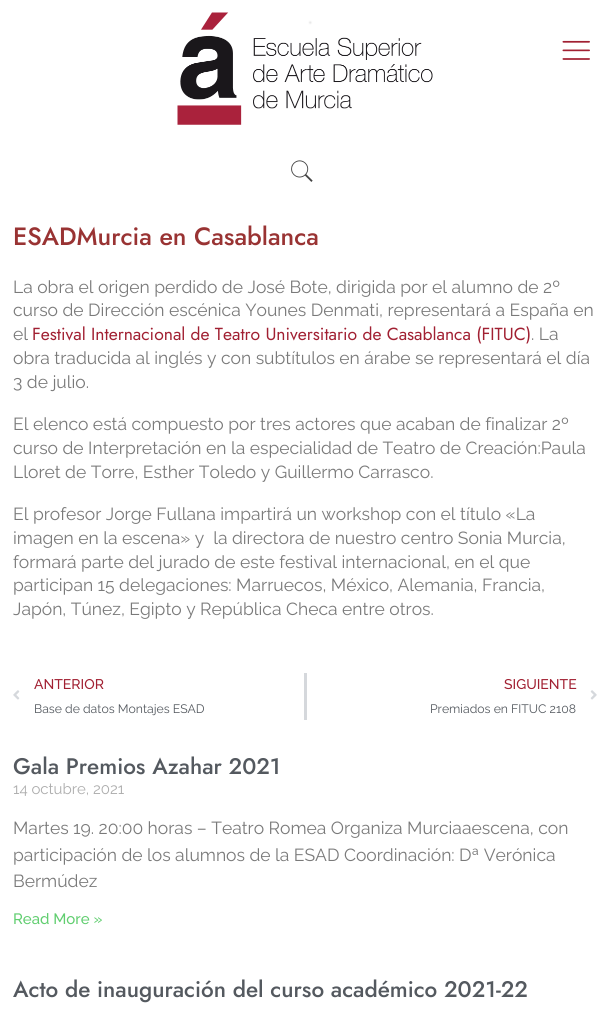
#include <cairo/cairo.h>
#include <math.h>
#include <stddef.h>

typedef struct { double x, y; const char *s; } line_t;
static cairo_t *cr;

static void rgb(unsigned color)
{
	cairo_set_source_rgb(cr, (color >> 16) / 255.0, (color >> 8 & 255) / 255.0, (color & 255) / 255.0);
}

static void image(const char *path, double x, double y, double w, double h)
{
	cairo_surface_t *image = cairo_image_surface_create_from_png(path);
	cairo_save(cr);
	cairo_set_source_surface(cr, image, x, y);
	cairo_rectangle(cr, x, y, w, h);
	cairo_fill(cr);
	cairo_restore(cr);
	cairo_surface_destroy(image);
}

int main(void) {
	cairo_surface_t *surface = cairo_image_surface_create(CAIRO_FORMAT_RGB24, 610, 1014);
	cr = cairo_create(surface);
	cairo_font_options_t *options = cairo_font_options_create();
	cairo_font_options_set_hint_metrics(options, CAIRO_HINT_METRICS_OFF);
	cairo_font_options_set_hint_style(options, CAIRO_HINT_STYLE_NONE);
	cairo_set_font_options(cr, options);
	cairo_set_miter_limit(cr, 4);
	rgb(0xffffff);
	cairo_paint(cr);
	image("img/1.png", 177, 12, 256, 113);
	image("img/2.png", 562, 40, 28, 20);
	image("img/3.png", 291, 160, 22, 22);
	image("img/4.png", 13, 690, 7, 10);
	rgb(0xd5d8dc);
	cairo_rectangle(cr, 304, 673, 3, 47);
	cairo_fill(cr);
	image("img/5.png", 590, 690, 7, 10);
	cairo_select_font_face(cr, "Jost Medium", CAIRO_FONT_SLANT_NORMAL, CAIRO_FONT_WEIGHT_NORMAL);
	cairo_set_font_size(cr, 25);
	rgb(0x993333);
	cairo_move_to(cr, 13, 245);
	cairo_show_text(cr, "ESADMurcia en Casablanca");
	cairo_select_font_face(cr, "Raleway", CAIRO_FONT_SLANT_NORMAL, CAIRO_FONT_WEIGHT_NORMAL);
	cairo_set_font_size(cr, 17.5);
	rgb(0x7a7a7a);
	{
		static const line_t items[] = {
			{13, 293, "La obra el origen perdido de José Bote, dirigida por el alumno de 2º"},
			{13, 316, "curso de Dirección escénica Younes Denmati, representará a España en"},
			{13, 340, "el"},
		};
		for (size_t i = 0; i < sizeof items / sizeof *items; i++) {
			cairo_move_to(cr, items[i].x, items[i].y);
			cairo_show_text(cr, items[i].s);
		}
	}
	cairo_select_font_face(cr, "Jost", CAIRO_FONT_SLANT_NORMAL, CAIRO_FONT_WEIGHT_NORMAL);
	rgb(0xa12032);
	cairo_move_to(cr, 32, 340);
	cairo_show_text(cr, "Festival Internacional de Teatro Universitario de Casablanca (FITUC)");
	cairo_select_font_face(cr, "Raleway", CAIRO_FONT_SLANT_NORMAL, CAIRO_FONT_WEIGHT_NORMAL);
	rgb(0x7a7a7a);
	{
		static const line_t items[] = {
			{531, 340, ". La"},
			{13, 364, "obra traducida al inglés y con subtítulos en árabe se representará el día"},
			{13, 388, "3 de julio."},
			{13, 430, "El elenco está compuesto por tres actores que acaban de finalizar 2º"},
			{13, 454, "curso de Interpretación en la especialidad de Teatro de Creación:Paula"},
			{13, 478, "Lloret de Torre, Esther Toledo y Guillermo Carrasco."},
			{13, 520, "El profesor Jorge Fullana impartirá un workshop con el título «La"},
			{13, 544, "imagen en la escena» y  la directora de nuestro centro Sonia Murcia,"},
			{13, 568, "formará parte del jurado de este festival internacional, en el que"},
			{13, 591, "participan 15 delegaciones: Marruecos, México, Alemania, Francia,"},
			{13, 615, "Japón, Túnez, Egipto y República Checa entre otros."},
		};
		for (size_t i = 0; i < sizeof items / sizeof *items; i++) {
			cairo_move_to(cr, items[i].x, items[i].y);
			cairo_show_text(cr, items[i].s);
		}
	}
	cairo_select_font_face(cr, "Raleway Medium", CAIRO_FONT_SLANT_NORMAL, CAIRO_FONT_WEIGHT_NORMAL);
	cairo_set_font_size(cr, 14);
	rgb(0xa12032);
	cairo_move_to(cr, 34, 689);
	cairo_show_text(cr, "ANTERIOR");
	cairo_select_font_face(cr, "Raleway", CAIRO_FONT_SLANT_NORMAL, CAIRO_FONT_WEIGHT_NORMAL);
	cairo_set_font_size(cr, 12.25);
	rgb(0x54595f);
	cairo_move_to(cr, 34, 713);
	cairo_show_text(cr, "Base de datos Montajes ESAD");
	cairo_select_font_face(cr, "Raleway Medium", CAIRO_FONT_SLANT_NORMAL, CAIRO_FONT_WEIGHT_NORMAL);
	cairo_set_font_size(cr, 14);
	rgb(0xa12032);
	cairo_move_to(cr, 504, 689);
	cairo_show_text(cr, "SIGUIENTE");
	cairo_select_font_face(cr, "Raleway", CAIRO_FONT_SLANT_NORMAL, CAIRO_FONT_WEIGHT_NORMAL);
	cairo_set_font_size(cr, 12.25);
	rgb(0x54595f);
	cairo_move_to(cr, 430, 713);
	cairo_show_text(cr, "Premiados en FITUC 2108");
	cairo_select_font_face(cr, "Jost Medium", CAIRO_FONT_SLANT_NORMAL, CAIRO_FONT_WEIGHT_NORMAL);
	cairo_set_font_size(cr, 22.5);
	cairo_move_to(cr, 13, 774);
	cairo_show_text(cr, "Gala Premios Azahar 2021");
	cairo_select_font_face(cr, "Raleway", CAIRO_FONT_SLANT_NORMAL, CAIRO_FONT_WEIGHT_NORMAL);
	cairo_set_font_size(cr, 15);
	rgb(0xadadad);
	cairo_move_to(cr, 13, 794);
	cairo_show_text(cr, "14 octubre, 2021");
	cairo_set_font_size(cr, 17.5);
	rgb(0x7a7a7a);
	{
		static const line_t items[] = {
			{13, 834, "Martes 19. 20:00 horas – Teatro Romea Organiza Murciaaescena, con"},
			{13, 861, "participación de los alumnos de la ESAD Coordinación: Dª Verónica"},
			{13, 887, "Bermúdez"},
		};
		for (size_t i = 0; i < sizeof items / sizeof *items; i++) {
			cairo_move_to(cr, items[i].x, items[i].y);
			cairo_show_text(cr, items[i].s);
		}
	}
	cairo_select_font_face(cr, "Raleway Medium", CAIRO_FONT_SLANT_NORMAL, CAIRO_FONT_WEIGHT_NORMAL);
	cairo_set_font_size(cr, 15);
	rgb(0x61ce70);
	cairo_move_to(cr, 13, 924);
	cairo_show_text(cr, "Read More »");
	cairo_select_font_face(cr, "Jost Medium", CAIRO_FONT_SLANT_NORMAL, CAIRO_FONT_WEIGHT_NORMAL);
	cairo_set_font_size(cr, 22.5);
	rgb(0x54595f);
	cairo_move_to(cr, 13, 997);
	cairo_show_text(cr, "Acto de inauguración del curso académico 2021-22");
	cairo_surface_write_to_png(surface, "page.png");
	cairo_font_options_destroy(options);
	cairo_destroy(cr);
	cairo_surface_destroy(surface);
	return 0;
}
